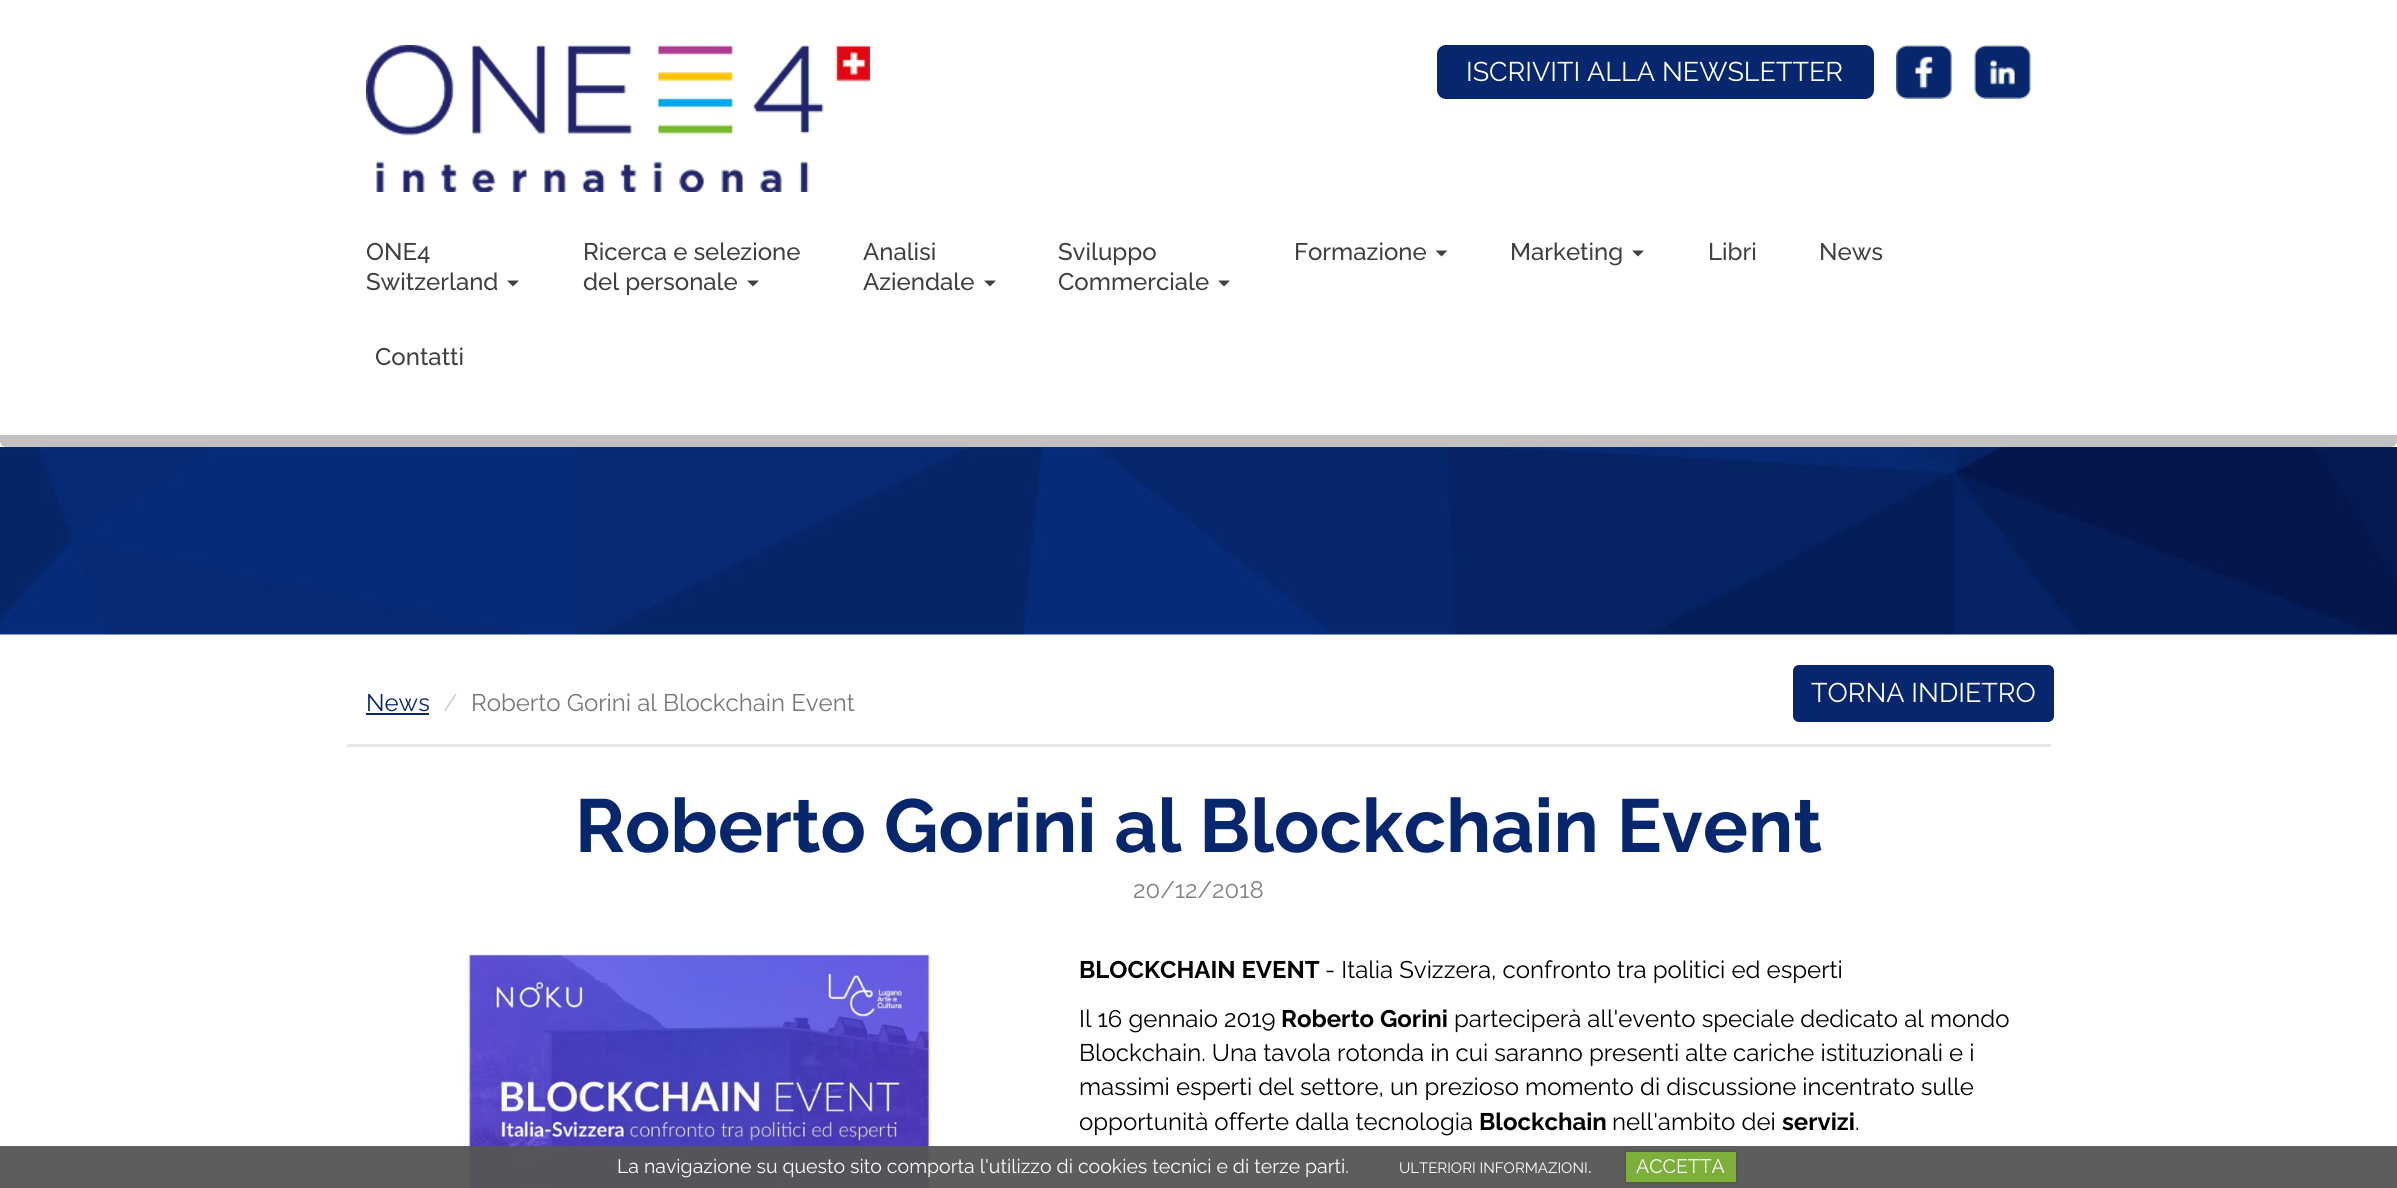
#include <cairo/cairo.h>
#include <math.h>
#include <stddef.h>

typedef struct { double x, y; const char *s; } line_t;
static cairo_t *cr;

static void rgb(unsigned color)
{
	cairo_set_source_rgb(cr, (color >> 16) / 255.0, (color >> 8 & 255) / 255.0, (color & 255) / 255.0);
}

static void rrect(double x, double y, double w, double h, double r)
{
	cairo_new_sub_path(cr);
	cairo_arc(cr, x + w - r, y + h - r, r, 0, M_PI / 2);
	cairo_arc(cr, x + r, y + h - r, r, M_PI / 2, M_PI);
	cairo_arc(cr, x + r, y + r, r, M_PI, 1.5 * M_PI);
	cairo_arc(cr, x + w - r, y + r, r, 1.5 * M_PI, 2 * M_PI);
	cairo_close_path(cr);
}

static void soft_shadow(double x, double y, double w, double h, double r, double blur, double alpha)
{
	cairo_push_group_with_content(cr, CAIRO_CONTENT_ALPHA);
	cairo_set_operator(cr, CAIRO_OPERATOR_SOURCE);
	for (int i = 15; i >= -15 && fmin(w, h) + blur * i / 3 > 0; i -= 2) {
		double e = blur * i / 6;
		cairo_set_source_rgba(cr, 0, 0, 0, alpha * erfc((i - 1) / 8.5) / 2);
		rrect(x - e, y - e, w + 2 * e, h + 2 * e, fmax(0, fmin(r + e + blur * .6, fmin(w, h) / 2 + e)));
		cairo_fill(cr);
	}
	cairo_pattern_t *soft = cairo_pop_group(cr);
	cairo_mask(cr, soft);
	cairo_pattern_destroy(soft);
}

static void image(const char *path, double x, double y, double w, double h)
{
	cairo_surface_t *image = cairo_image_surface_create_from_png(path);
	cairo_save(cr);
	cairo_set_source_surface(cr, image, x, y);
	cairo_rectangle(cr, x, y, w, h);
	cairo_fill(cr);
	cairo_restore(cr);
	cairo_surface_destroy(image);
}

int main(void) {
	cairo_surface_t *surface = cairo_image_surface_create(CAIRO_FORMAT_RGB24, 2397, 1188);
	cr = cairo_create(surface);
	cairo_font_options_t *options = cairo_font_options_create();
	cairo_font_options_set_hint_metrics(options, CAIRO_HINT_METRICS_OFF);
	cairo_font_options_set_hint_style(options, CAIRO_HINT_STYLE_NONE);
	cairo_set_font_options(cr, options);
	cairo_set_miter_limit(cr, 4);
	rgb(0xffffff);
	cairo_paint(cr);
	image("img/1.png", 366, 45, 504, 147);
	rgb(0x06276d);
	rrect(1437, 45, 437, 54, 9);
	cairo_fill(cr);
	image("img/2.png", 1896, 45, 56, 54);
	image("img/3.png", 1974, 45, 57, 54);
	image("img/4.png", 0, 435, 2397, 12);
	rgb(0x404040);
	cairo_new_path(cr);
	cairo_move_to(cr, 507, 280.5);
	cairo_line_to(cr, 519, 280.5);
	cairo_line_to(cr, 513, 286.5);
	cairo_close_path(cr);
	cairo_fill(cr);
	cairo_new_path(cr);
	cairo_move_to(cr, 747, 280.5);
	cairo_line_to(cr, 759, 280.5);
	cairo_line_to(cr, 753, 286.5);
	cairo_close_path(cr);
	cairo_fill(cr);
	cairo_new_path(cr);
	cairo_move_to(cr, 984, 280.5);
	cairo_line_to(cr, 996, 280.5);
	cairo_line_to(cr, 990, 286.5);
	cairo_close_path(cr);
	cairo_fill(cr);
	cairo_new_path(cr);
	cairo_move_to(cr, 1218, 280.5);
	cairo_line_to(cr, 1230, 280.5);
	cairo_line_to(cr, 1224, 286.5);
	cairo_close_path(cr);
	cairo_fill(cr);
	cairo_new_path(cr);
	cairo_move_to(cr, 1435.5, 250.5);
	cairo_line_to(cr, 1447.5, 250.5);
	cairo_line_to(cr, 1441.5, 256.5);
	cairo_close_path(cr);
	cairo_fill(cr);
	cairo_new_path(cr);
	cairo_move_to(cr, 1632, 250.5);
	cairo_line_to(cr, 1644, 250.5);
	cairo_line_to(cr, 1638, 256.5);
	cairo_close_path(cr);
	cairo_fill(cr);
	image("img/5.png", 0, 447, 2397, 188);
	rgb(0xe6e6e6);
	cairo_rectangle(cr, 347, 744, 1704, 3);
	cairo_fill(cr);
	rgb(0x06276d);
	cairo_rectangle(cr, 366, 713, 63, 2);
	cairo_fill(cr);
	rrect(1793, 665, 261, 57, 6);
	cairo_fill(cr);
	image("img/6.png", 463, 954, 469, 234);
	cairo_set_source_rgba(cr, 0.337, 0.337, 0.337, 0.95);
	cairo_rectangle(cr, 0, 1146, 2397, 42);
	cairo_fill(cr);
	rgb(0x000000);
	soft_shadow(1626, 1152, 110, 30, 0, 1.5, 0.25);
	rgb(0x7daf3b);
	cairo_rectangle(cr, 1626, 1152, 110, 30);
	cairo_fill(cr);
	cairo_select_font_face(cr, "Raleway", CAIRO_FONT_SLANT_NORMAL, CAIRO_FONT_WEIGHT_NORMAL);
	cairo_set_font_size(cr, 27);
	rgb(0xffffff);
	cairo_move_to(cr, 1466, 81);
	cairo_show_text(cr, "ISCRIVITI ALLA NEWSLETTER");
	cairo_select_font_face(cr, "Raleway Medium", CAIRO_FONT_SLANT_NORMAL, CAIRO_FONT_WEIGHT_NORMAL);
	cairo_set_font_size(cr, 24);
	rgb(0x404040);
	{
		static const line_t items[] = {
			{366, 260, "ONE4"},
			{366, 290, "Switzerland"},
			{583, 260, "Ricerca e selezione"},
			{583, 290, "del personale"},
			{863, 260, "Analisi"},
			{863, 290, "Aziendale"},
			{1058, 260, "Sviluppo"},
			{1058, 290, "Commerciale"},
			{1294, 260, "Formazione"},
			{1510, 260, "Marketing"},
			{1708, 260, "Libri"},
			{1819, 260, "News"},
			{375, 365, "Contatti"},
		};
		for (size_t i = 0; i < sizeof items / sizeof *items; i++) {
			cairo_move_to(cr, items[i].x, items[i].y);
			cairo_show_text(cr, items[i].s);
		}
	}
	cairo_select_font_face(cr, "Raleway", CAIRO_FONT_SLANT_NORMAL, CAIRO_FONT_WEIGHT_NORMAL);
	rgb(0x06276d);
	cairo_move_to(cr, 366, 711);
	cairo_show_text(cr, "News");
	rgb(0xcccccc);
	cairo_move_to(cr, 443, 711);
	cairo_show_text(cr, "/");
	rgb(0x777777);
	cairo_move_to(cr, 471, 711);
	cairo_show_text(cr, "Roberto Gorini al Blockchain Event");
	cairo_set_font_size(cr, 27);
	rgb(0xffffff);
	cairo_move_to(cr, 1811, 702);
	cairo_show_text(cr, "TORNA INDIETRO");
	cairo_select_font_face(cr, "Raleway", CAIRO_FONT_SLANT_NORMAL, CAIRO_FONT_WEIGHT_BOLD);
	cairo_set_font_size(cr, 75);
	rgb(0x06276d);
	cairo_move_to(cr, 575, 852);
	cairo_show_text(cr, "Roberto Gorini al Blockchain Event");
	cairo_select_font_face(cr, "Raleway", CAIRO_FONT_SLANT_NORMAL, CAIRO_FONT_WEIGHT_NORMAL);
	cairo_set_font_size(cr, 24);
	rgb(0x818181);
	cairo_move_to(cr, 1133, 898);
	cairo_show_text(cr, "20/12/2018");
	cairo_select_font_face(cr, "Raleway", CAIRO_FONT_SLANT_NORMAL, CAIRO_FONT_WEIGHT_BOLD);
	rgb(0x000000);
	cairo_move_to(cr, 1079, 978);
	cairo_show_text(cr, "BLOCKCHAIN EVENT");
	cairo_select_font_face(cr, "Raleway", CAIRO_FONT_SLANT_NORMAL, CAIRO_FONT_WEIGHT_NORMAL);
	cairo_move_to(cr, 1325, 978);
	cairo_show_text(cr, "- Italia Svizzera, confronto tra politici ed esperti");
	cairo_move_to(cr, 1079, 1027);
	cairo_show_text(cr, "Il 16 gennaio 2019");
	cairo_select_font_face(cr, "Raleway", CAIRO_FONT_SLANT_NORMAL, CAIRO_FONT_WEIGHT_BOLD);
	cairo_move_to(cr, 1281, 1027);
	cairo_show_text(cr, "Roberto Gorini");
	cairo_select_font_face(cr, "Raleway", CAIRO_FONT_SLANT_NORMAL, CAIRO_FONT_WEIGHT_NORMAL);
	{
		static const line_t items[] = {
			{1454, 1027, "parteciperà all'evento speciale dedicato al mondo"},
			{1079, 1061, "Blockchain. Una tavola rotonda in cui saranno presenti alte cariche istituzionali e i"},
			{1079, 1095, "massimi esperti del settore, un prezioso momento di discussione incentrato sulle"},
			{1079, 1130, "opportunità offerte dalla tecnologia"},
		};
		for (size_t i = 0; i < sizeof items / sizeof *items; i++) {
			cairo_move_to(cr, items[i].x, items[i].y);
			cairo_show_text(cr, items[i].s);
		}
	}
	cairo_select_font_face(cr, "Raleway", CAIRO_FONT_SLANT_NORMAL, CAIRO_FONT_WEIGHT_BOLD);
	cairo_move_to(cr, 1479, 1130);
	cairo_show_text(cr, "Blockchain");
	cairo_select_font_face(cr, "Raleway", CAIRO_FONT_SLANT_NORMAL, CAIRO_FONT_WEIGHT_NORMAL);
	cairo_move_to(cr, 1612, 1130);
	cairo_show_text(cr, "nell'ambito dei");
	cairo_select_font_face(cr, "Raleway", CAIRO_FONT_SLANT_NORMAL, CAIRO_FONT_WEIGHT_BOLD);
	cairo_move_to(cr, 1782, 1130);
	cairo_show_text(cr, "servizi");
	cairo_select_font_face(cr, "Raleway", CAIRO_FONT_SLANT_NORMAL, CAIRO_FONT_WEIGHT_NORMAL);
	cairo_move_to(cr, 1855, 1130);
	cairo_show_text(cr, ".");
	cairo_set_font_size(cr, 19.5);
	rgb(0xffffff);
	cairo_move_to(cr, 617, 1173);
	cairo_show_text(cr, "La navigazione su questo sito comporta l'utilizzo di cookies tecnici e di terze parti.");
	cairo_set_font_size(cr, 15);
	cairo_move_to(cr, 1399, 1173);
	cairo_show_text(cr, "ULTERIORI INFORMAZIONI");
	cairo_set_font_size(cr, 19.5);
	cairo_move_to(cr, 1588, 1173);
	cairo_show_text(cr, ".");
	cairo_move_to(cr, 1636, 1173);
	cairo_show_text(cr, "ACCETTA");
	cairo_surface_write_to_png(surface, "page.png");
	cairo_font_options_destroy(options);
	cairo_destroy(cr);
	cairo_surface_destroy(surface);
	return 0;
}
